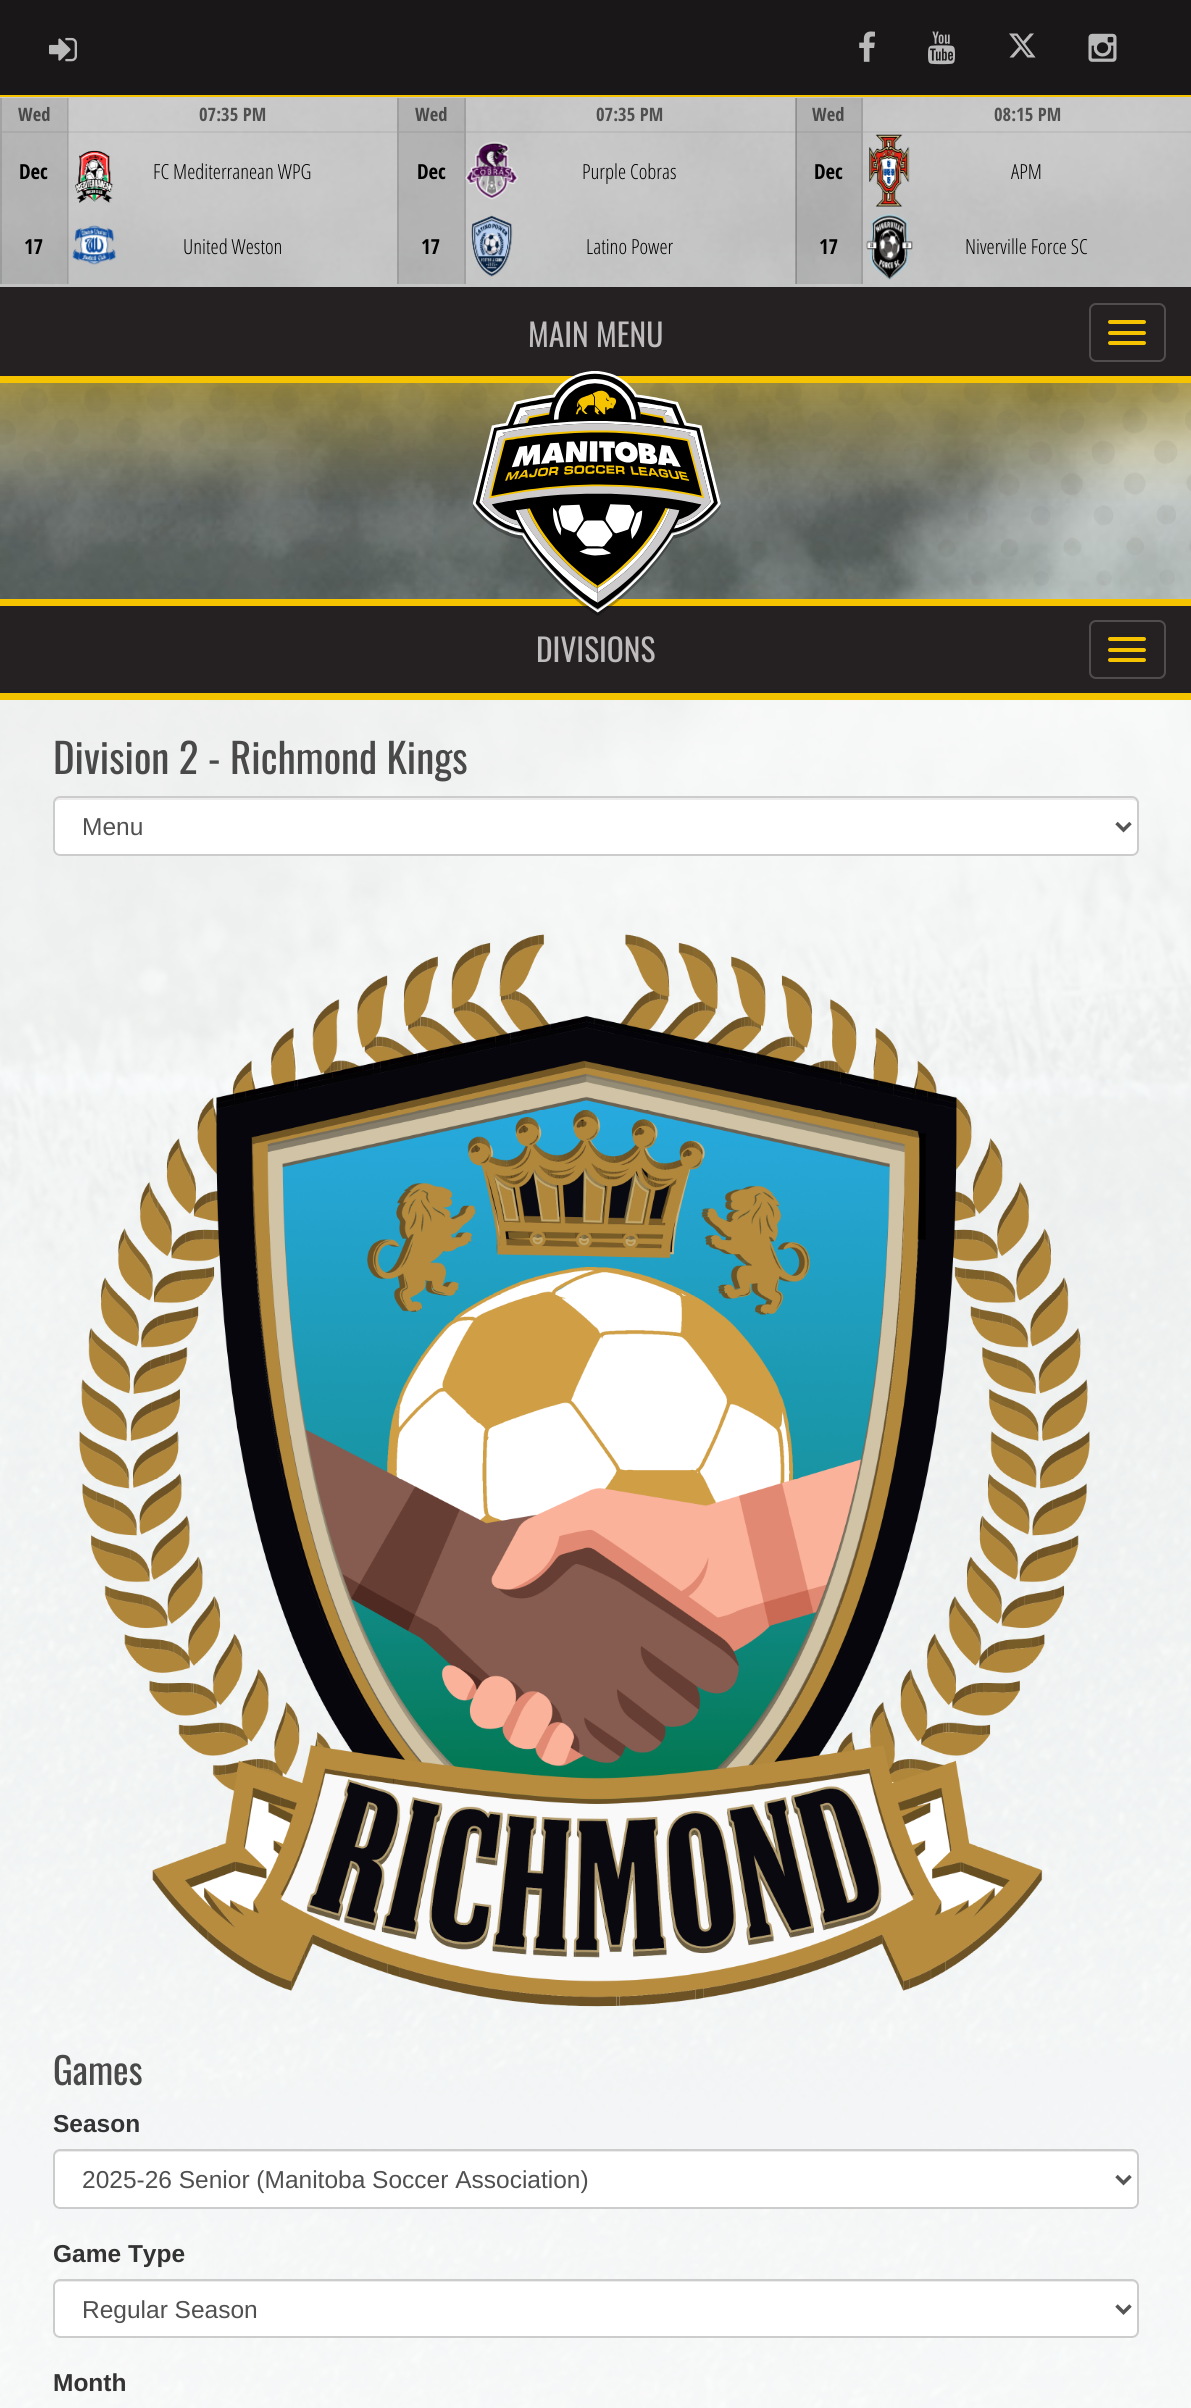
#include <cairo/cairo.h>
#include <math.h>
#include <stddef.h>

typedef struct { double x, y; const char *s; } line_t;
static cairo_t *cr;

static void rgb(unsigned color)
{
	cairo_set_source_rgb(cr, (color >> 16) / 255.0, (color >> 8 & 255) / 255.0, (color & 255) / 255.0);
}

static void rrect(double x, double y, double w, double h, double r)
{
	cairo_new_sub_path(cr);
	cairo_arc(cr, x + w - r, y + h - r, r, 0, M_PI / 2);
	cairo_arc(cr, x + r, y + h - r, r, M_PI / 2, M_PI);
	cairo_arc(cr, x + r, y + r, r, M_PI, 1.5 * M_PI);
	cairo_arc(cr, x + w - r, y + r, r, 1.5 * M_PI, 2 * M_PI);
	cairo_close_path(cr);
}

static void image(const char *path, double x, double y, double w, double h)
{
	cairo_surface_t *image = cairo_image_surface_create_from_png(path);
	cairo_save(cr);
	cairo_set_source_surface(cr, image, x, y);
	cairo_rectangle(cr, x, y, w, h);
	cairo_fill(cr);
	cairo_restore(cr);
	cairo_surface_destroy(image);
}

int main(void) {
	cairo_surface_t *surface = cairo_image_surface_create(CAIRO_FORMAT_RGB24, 1191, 2408);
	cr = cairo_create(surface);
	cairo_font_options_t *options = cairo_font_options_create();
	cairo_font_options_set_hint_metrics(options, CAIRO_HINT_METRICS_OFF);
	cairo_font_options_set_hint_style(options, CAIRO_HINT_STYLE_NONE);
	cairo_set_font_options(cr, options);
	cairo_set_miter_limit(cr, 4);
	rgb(0xffffff);
	cairo_paint(cr);
	rgb(0xf5c300);
	cairo_rectangle(cr, 0, 95, 1191, 2);
	cairo_fill(cr);
	rgb(0x1a1718);
	cairo_rectangle(cr, 0, 0, 1191, 95);
	cairo_fill(cr);
	image("img/1.png", 49, 37, 28, 25);
	image("img/2.png", 859, 31, 16, 31);
	image("img/3.png", 928, 31, 27, 34);
	image("img/4.png", 1009, 33, 27, 25);
	image("img/5.png", 1088, 33, 29, 29);
	image("img/6.png", 0, 97, 1191, 2311);
	cairo_set_source_rgba(cr, 1, 1, 1, 0.6);
	cairo_rectangle(cr, 0, 97, 1191, 190);
	cairo_fill(cr);
	rgb(0x252122);
	cairo_rectangle(cr, 0, 287, 1191, 89);
	cairo_fill(cr);
	cairo_set_source_rgba(cr, 0, 0, 0, 0.2);
	cairo_rectangle(cr, 0, 98, 2, 186);
	cairo_fill(cr);
	cairo_set_source_rgba(cr, 0, 0, 0, 0.1);
	cairo_rectangle(cr, 2, 98, 66, 186);
	cairo_fill(cr);
	cairo_rectangle(cr, 67, 98, 2, 186);
	cairo_fill(cr);
	rgb(0xaaaaaa);
	cairo_rectangle(cr, 2, 131, 65, 2);
	cairo_fill(cr);
	cairo_set_source_rgba(cr, 0, 0, 0, 0.06);
	cairo_rectangle(cr, 68, 131, 329, 2);
	cairo_fill(cr);
	image("img/7.png", 75, 150, 39, 53);
	image("img/8.png", 72, 225, 45, 40);
	cairo_set_source_rgba(cr, 0, 0, 0, 0.2);
	cairo_rectangle(cr, 397, 98, 2, 186);
	cairo_fill(cr);
	cairo_set_source_rgba(cr, 0, 0, 0, 0.1);
	cairo_rectangle(cr, 399, 98, 67, 186);
	cairo_fill(cr);
	cairo_rectangle(cr, 464, 98, 2, 186);
	cairo_fill(cr);
	cairo_set_source_rgba(cr, 0, 0, 0, 0.06);
	cairo_rectangle(cr, 399, 131, 65, 2);
	cairo_fill(cr);
	cairo_rectangle(cr, 466, 131, 329, 2);
	cairo_fill(cr);
	image("img/9.png", 465, 141, 54, 59);
	image("img/10.png", 471, 215, 42, 62);
	cairo_set_source_rgba(cr, 0, 0, 0, 0.2);
	cairo_rectangle(cr, 795, 98, 2, 186);
	cairo_fill(cr);
	cairo_set_source_rgba(cr, 0, 0, 0, 0.1);
	cairo_rectangle(cr, 796, 98, 67, 186);
	cairo_fill(cr);
	cairo_rectangle(cr, 861, 98, 2, 186);
	cairo_fill(cr);
	cairo_set_source_rgba(cr, 0, 0, 0, 0.06);
	cairo_rectangle(cr, 796, 131, 65, 2);
	cairo_fill(cr);
	cairo_rectangle(cr, 863, 131, 328, 2);
	cairo_fill(cr);
	image("img/11.png", 869, 134, 41, 73);
	image("img/12.png", 866, 214, 47, 66);
	rgb(0xf5c300);
	cairo_rectangle(cr, 0, 376, 1191, 7);
	cairo_fill(cr);
	rrect(1090, 304, 75, 57, 6);
	rgb(0x514d4e);
	cairo_stroke(cr);
	rgb(0xf5c300);
	rrect(1108, 320, 38, 4, 2);
	cairo_fill(cr);
	rrect(1108, 331, 38, 4, 2);
	cairo_fill(cr);
	rrect(1108, 341, 38, 4, 2);
	cairo_fill(cr);
	image("img/14.png", 0, 383, 1191, 203);
	cairo_rectangle(cr, 0, 599, 1191, 7);
	cairo_fill(cr);
	rgb(0x252122);
	cairo_rectangle(cr, 0, 606, 1191, 87);
	cairo_fill(cr);
	image("img/13.png", 473, 371, 248, 245);
	rrect(1090, 621, 75, 57, 6);
	rgb(0x514d4e);
	cairo_stroke(cr);
	rgb(0xf5c300);
	rrect(1108, 637, 38, 4, 2);
	cairo_fill(cr);
	rrect(1108, 648, 38, 4, 2);
	cairo_fill(cr);
	rrect(1108, 658, 38, 4, 2);
	cairo_fill(cr);
	cairo_rectangle(cr, 0, 693, 1191, 7);
	cairo_fill(cr);
	cairo_set_source_rgba(cr, 1, 1, 1, 0.9);
	cairo_rectangle(cr, 0, 700, 1191, 1708);
	cairo_fill(cr);
	rgb(0xffffff);
	rrect(53, 796, 1086, 60, 7);
	cairo_fill(cr);
	rgb(0xececec);
	cairo_new_path(cr);
	cairo_move_to(cr, 60, 800);
	cairo_line_to(cr, 1132, 800);
	cairo_curve_to(cr, 1135, 800, 1138, 802, 1138, 805);
	cairo_line_to(cr, 1138, 803);
	cairo_curve_to(cr, 1138, 800, 1136, 798, 1133, 798);
	cairo_line_to(cr, 59, 798);
	cairo_curve_to(cr, 56, 798, 54, 800, 54, 803);
	cairo_line_to(cr, 54, 805);
	cairo_curve_to(cr, 54, 802, 57, 800, 60, 800);
	cairo_close_path(cr);
	cairo_fill(cr);
	rrect(54, 797, 1084, 58, 6);
	rgb(0xcccccc);
	cairo_stroke(cr);
	cairo_new_path(cr);
	cairo_move_to(cr, 1116.5, 823);
	cairo_line_to(cr, 1123.5, 830);
	cairo_line_to(cr, 1130.5, 823);
	rgb(0x555555);
	cairo_set_line_width(cr, 3.5);
	cairo_stroke(cr);
	image("img/15.png", 79, 934, 1011, 1073);
	rgb(0xffffff);
	rrect(53, 2149, 1086, 60, 7);
	cairo_fill(cr);
	rgb(0xececec);
	cairo_new_path(cr);
	cairo_move_to(cr, 60, 2152);
	cairo_line_to(cr, 1132, 2152);
	cairo_curve_to(cr, 1135, 2152, 1138, 2155, 1138, 2158);
	cairo_line_to(cr, 1138, 2156);
	cairo_curve_to(cr, 1138, 2153, 1136, 2151, 1133, 2151);
	cairo_line_to(cr, 59, 2151);
	cairo_curve_to(cr, 56, 2151, 54, 2153, 54, 2156);
	cairo_line_to(cr, 54, 2158);
	cairo_curve_to(cr, 54, 2155, 57, 2152, 60, 2152);
	cairo_close_path(cr);
	cairo_fill(cr);
	rrect(54, 2150, 1084, 58, 6);
	rgb(0xcccccc);
	cairo_set_line_width(cr, 2);
	cairo_stroke(cr);
	cairo_new_path(cr);
	cairo_move_to(cr, 1116.5, 2176);
	cairo_line_to(cr, 1123.5, 2183);
	cairo_line_to(cr, 1130.5, 2176);
	rgb(0x555555);
	cairo_set_line_width(cr, 3.5);
	cairo_stroke(cr);
	rgb(0xffffff);
	rrect(53, 2279, 1086, 59, 7);
	cairo_fill(cr);
	rgb(0xececec);
	cairo_new_path(cr);
	cairo_move_to(cr, 60, 2282);
	cairo_line_to(cr, 1132, 2282);
	cairo_curve_to(cr, 1135, 2282, 1138, 2284, 1138, 2287);
	cairo_line_to(cr, 1138, 2285);
	cairo_curve_to(cr, 1138, 2282, 1136, 2280, 1133, 2280);
	cairo_line_to(cr, 59, 2280);
	cairo_curve_to(cr, 56, 2280, 54, 2282, 54, 2285);
	cairo_line_to(cr, 54, 2287);
	cairo_curve_to(cr, 54, 2284, 57, 2282, 60, 2282);
	cairo_close_path(cr);
	cairo_fill(cr);
	rrect(54, 2280, 1084, 57, 6);
	rgb(0xcccccc);
	cairo_set_line_width(cr, 2);
	cairo_stroke(cr);
	cairo_new_path(cr);
	cairo_move_to(cr, 1116.5, 2305.5);
	cairo_line_to(cr, 1123.5, 2312.5);
	cairo_line_to(cr, 1130.5, 2305.5);
	rgb(0x555555);
	cairo_set_line_width(cr, 3.5);
	cairo_stroke(cr);
	cairo_select_font_face(cr, "Open Sans Condensed", CAIRO_FONT_SLANT_NORMAL, CAIRO_FONT_WEIGHT_BOLD);
	cairo_set_font_size(cr, 18.5);
	rgb(0x494949);
	cairo_move_to(cr, 18, 121);
	cairo_show_text(cr, "Wed");
	cairo_set_font_size(cr, 20.75);
	rgb(0x000000);
	cairo_move_to(cr, 19, 179);
	cairo_show_text(cr, "Dec");
	cairo_move_to(cr, 24, 254);
	cairo_show_text(cr, "17");
	cairo_set_font_size(cr, 18.5);
	rgb(0x505050);
	cairo_move_to(cr, 199, 121);
	cairo_show_text(cr, "07:35 PM");
	cairo_select_font_face(cr, "Open Sans Condensed Light", CAIRO_FONT_SLANT_NORMAL, CAIRO_FONT_WEIGHT_NORMAL);
	cairo_set_font_size(cr, 20.75);
	rgb(0x000000);
	cairo_move_to(cr, 153, 179);
	cairo_show_text(cr, "FC Mediterranean WPG");
	cairo_move_to(cr, 183, 254);
	cairo_show_text(cr, "United Weston");
	cairo_select_font_face(cr, "Open Sans Condensed", CAIRO_FONT_SLANT_NORMAL, CAIRO_FONT_WEIGHT_BOLD);
	cairo_set_font_size(cr, 18.5);
	rgb(0x494949);
	cairo_move_to(cr, 415, 121);
	cairo_show_text(cr, "Wed");
	cairo_set_font_size(cr, 20.75);
	rgb(0x000000);
	cairo_move_to(cr, 417, 179);
	cairo_show_text(cr, "Dec");
	cairo_move_to(cr, 421, 254);
	cairo_show_text(cr, "17");
	cairo_set_font_size(cr, 18.5);
	rgb(0x505050);
	cairo_move_to(cr, 596, 121);
	cairo_show_text(cr, "07:35 PM");
	cairo_select_font_face(cr, "Open Sans Condensed Light", CAIRO_FONT_SLANT_NORMAL, CAIRO_FONT_WEIGHT_NORMAL);
	cairo_set_font_size(cr, 20.75);
	rgb(0x000000);
	cairo_move_to(cr, 582, 179);
	cairo_show_text(cr, "Purple Cobras");
	cairo_move_to(cr, 586, 254);
	cairo_show_text(cr, "Latino Power");
	cairo_select_font_face(cr, "Open Sans Condensed", CAIRO_FONT_SLANT_NORMAL, CAIRO_FONT_WEIGHT_BOLD);
	cairo_set_font_size(cr, 18.5);
	rgb(0x494949);
	cairo_move_to(cr, 812, 121);
	cairo_show_text(cr, "Wed");
	cairo_set_font_size(cr, 20.75);
	rgb(0x000000);
	cairo_move_to(cr, 814, 179);
	cairo_show_text(cr, "Dec");
	cairo_move_to(cr, 819, 254);
	cairo_show_text(cr, "17");
	cairo_set_font_size(cr, 18.5);
	rgb(0x505050);
	cairo_move_to(cr, 994, 121);
	cairo_show_text(cr, "08:15 PM");
	cairo_select_font_face(cr, "Open Sans Condensed Light", CAIRO_FONT_SLANT_NORMAL, CAIRO_FONT_WEIGHT_NORMAL);
	cairo_set_font_size(cr, 20.75);
	rgb(0x000000);
	cairo_move_to(cr, 1011, 179);
	cairo_show_text(cr, "APM");
	cairo_move_to(cr, 965, 254);
	cairo_show_text(cr, "Niverville Force SC");
	cairo_select_font_face(cr, "Oswald", CAIRO_FONT_SLANT_NORMAL, CAIRO_FONT_WEIGHT_NORMAL);
	cairo_set_font_size(cr, 31.5);
	rgb(0xbebcbd);
	cairo_move_to(cr, 528, 347);
	cairo_show_text(cr, "MAIN MENU");
	cairo_move_to(cr, 536, 662);
	cairo_show_text(cr, "DIVISIONS");
	cairo_set_font_size(cr, 41);
	rgb(0x494949);
	{
		static const line_t items[] = {
			{53, 774, "Division 2"},
			{208, 774, "-"},
			{230, 774, "Richmond Kings"},
		};
		for (size_t i = 0; i < sizeof items / sizeof *items; i++) {
			cairo_move_to(cr, items[i].x, items[i].y);
			cairo_show_text(cr, items[i].s);
		}
	}
	cairo_select_font_face(cr, "Liberation Sans", CAIRO_FONT_SLANT_NORMAL, CAIRO_FONT_WEIGHT_NORMAL);
	cairo_set_font_size(cr, 24.5);
	rgb(0x505050);
	cairo_move_to(cr, 82, 835);
	cairo_show_text(cr, "Menu");
	cairo_select_font_face(cr, "Oswald", CAIRO_FONT_SLANT_NORMAL, CAIRO_FONT_WEIGHT_NORMAL);
	cairo_set_font_size(cr, 37);
	rgb(0x494949);
	cairo_move_to(cr, 53, 2085);
	cairo_show_text(cr, "Games");
	cairo_select_font_face(cr, "Liberation Sans", CAIRO_FONT_SLANT_NORMAL, CAIRO_FONT_WEIGHT_BOLD);
	cairo_set_font_size(cr, 24.5);
	rgb(0x333333);
	cairo_move_to(cr, 53, 2132);
	cairo_show_text(cr, "Season");
	cairo_select_font_face(cr, "Liberation Sans", CAIRO_FONT_SLANT_NORMAL, CAIRO_FONT_WEIGHT_NORMAL);
	rgb(0x505050);
	cairo_move_to(cr, 82, 2188);
	cairo_show_text(cr, "2025-26 Senior (Manitoba Soccer Association)");
	cairo_select_font_face(cr, "Liberation Sans", CAIRO_FONT_SLANT_NORMAL, CAIRO_FONT_WEIGHT_BOLD);
	rgb(0x333333);
	cairo_move_to(cr, 53, 2262);
	cairo_show_text(cr, "Game Type");
	cairo_select_font_face(cr, "Liberation Sans", CAIRO_FONT_SLANT_NORMAL, CAIRO_FONT_WEIGHT_NORMAL);
	rgb(0x505050);
	cairo_move_to(cr, 82, 2318);
	cairo_show_text(cr, "Regular Season");
	cairo_select_font_face(cr, "Liberation Sans", CAIRO_FONT_SLANT_NORMAL, CAIRO_FONT_WEIGHT_BOLD);
	rgb(0x333333);
	cairo_move_to(cr, 53, 2391);
	cairo_show_text(cr, "Month");
	cairo_surface_write_to_png(surface, "page.png");
	cairo_font_options_destroy(options);
	cairo_destroy(cr);
	cairo_surface_destroy(surface);
	return 0;
}
